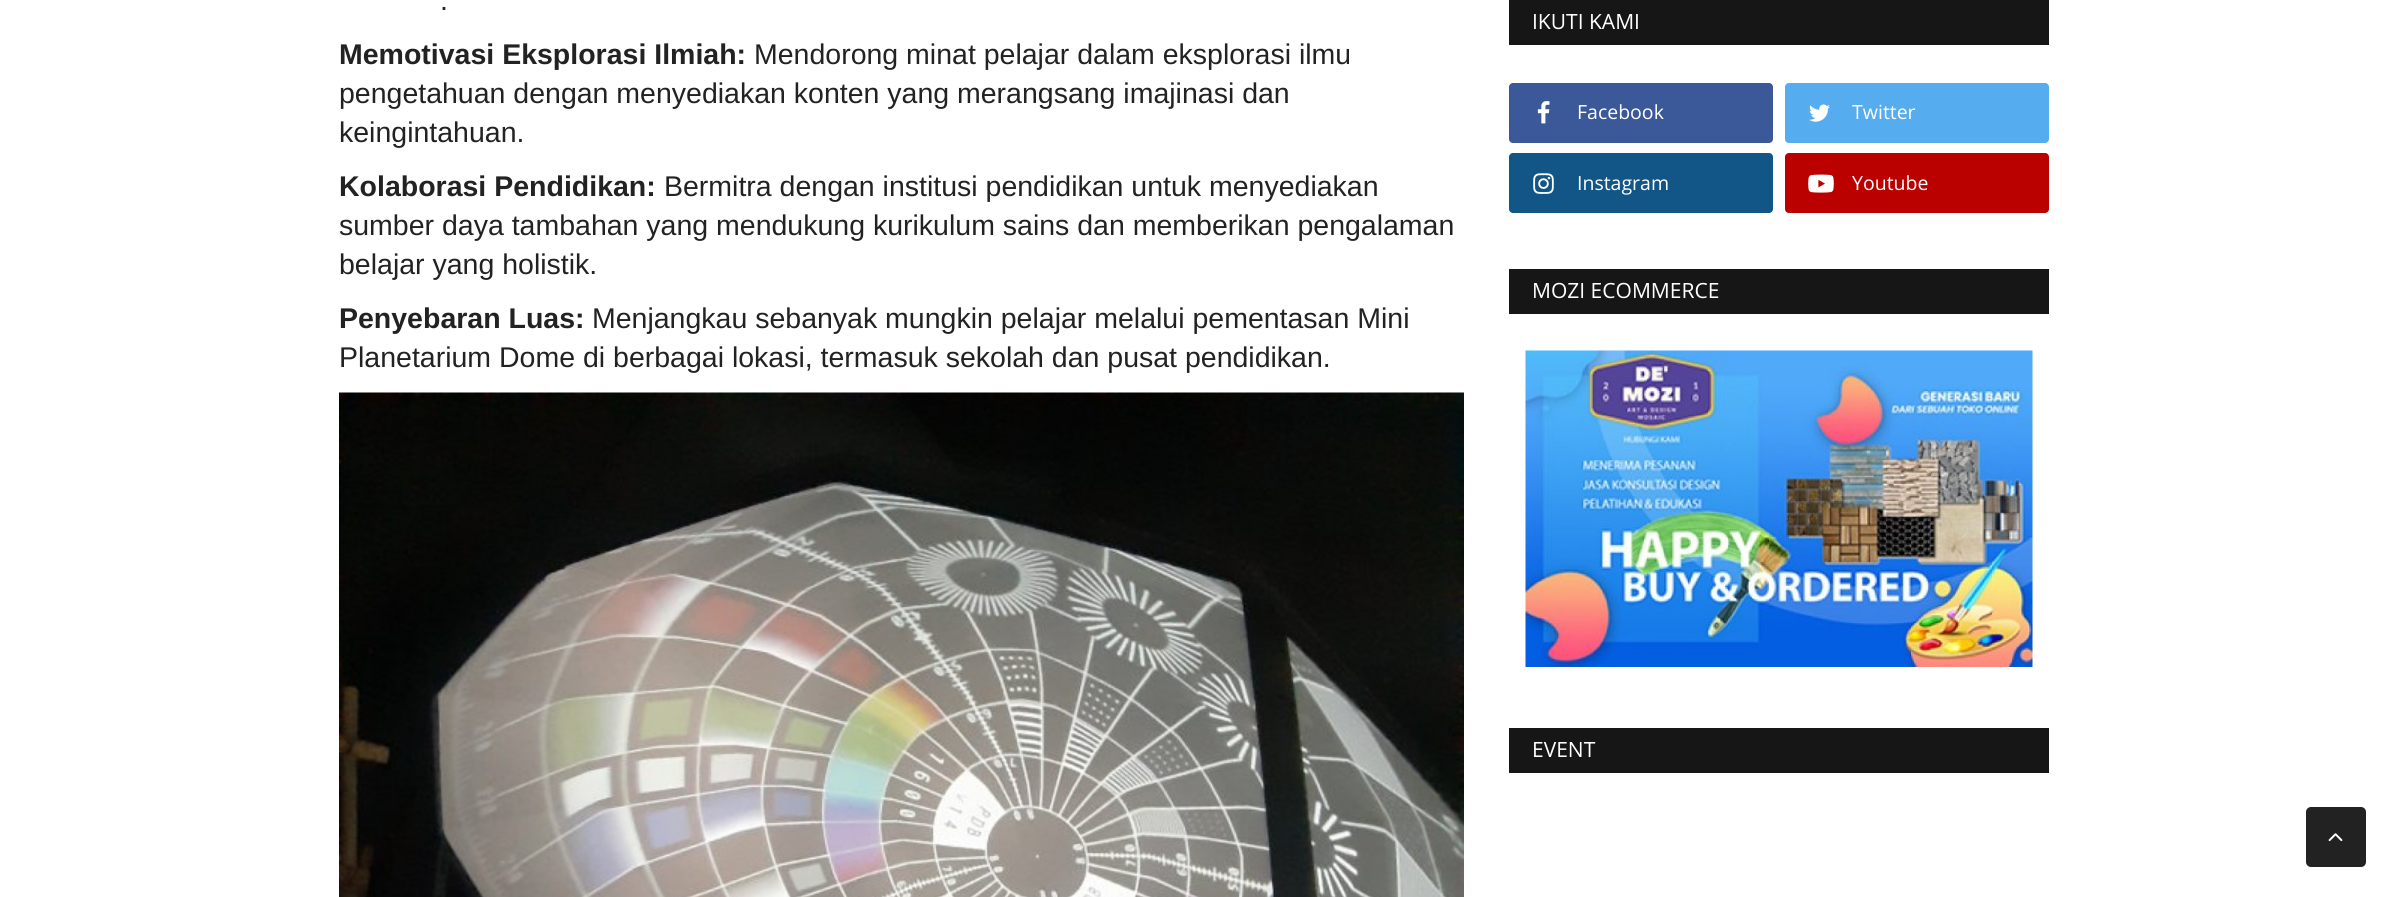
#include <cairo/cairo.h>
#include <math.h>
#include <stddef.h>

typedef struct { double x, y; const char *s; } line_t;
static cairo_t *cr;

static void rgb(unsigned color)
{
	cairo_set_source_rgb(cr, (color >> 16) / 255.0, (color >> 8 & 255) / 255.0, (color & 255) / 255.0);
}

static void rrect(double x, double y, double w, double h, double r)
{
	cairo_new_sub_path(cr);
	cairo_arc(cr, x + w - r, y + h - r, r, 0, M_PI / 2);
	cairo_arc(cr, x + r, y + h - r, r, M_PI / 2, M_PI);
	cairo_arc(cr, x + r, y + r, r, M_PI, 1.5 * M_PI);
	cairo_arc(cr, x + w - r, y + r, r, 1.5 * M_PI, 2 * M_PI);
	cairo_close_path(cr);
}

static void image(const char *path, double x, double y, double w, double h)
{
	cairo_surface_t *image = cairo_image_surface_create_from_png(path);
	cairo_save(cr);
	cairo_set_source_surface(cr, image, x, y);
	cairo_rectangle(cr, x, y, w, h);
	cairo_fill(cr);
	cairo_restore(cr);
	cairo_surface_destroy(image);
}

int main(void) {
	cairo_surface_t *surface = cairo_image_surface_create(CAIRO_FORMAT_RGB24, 2388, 897);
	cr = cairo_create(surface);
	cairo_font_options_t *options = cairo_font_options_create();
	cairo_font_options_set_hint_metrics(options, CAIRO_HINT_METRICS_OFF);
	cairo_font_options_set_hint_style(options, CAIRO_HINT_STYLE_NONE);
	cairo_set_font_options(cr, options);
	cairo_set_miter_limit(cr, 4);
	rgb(0xffffff);
	cairo_paint(cr);
	image("img/1.png", 339, 392, 1125, 505);
	rgb(0x161616);
	cairo_rectangle(cr, 1509, 0, 540, 45);
	cairo_fill(cr);
	rgb(0x3b5998);
	rrect(1509, 83, 264, 60, 4);
	cairo_fill(cr);
	image("img/2.png", 1537, 101, 13, 23);
	rgb(0x55acee);
	rrect(1785, 83, 264, 60, 4);
	cairo_fill(cr);
	image("img/3.png", 1809, 104, 21, 18);
	rgb(0x125688);
	rrect(1509, 153, 264, 60, 4);
	cairo_fill(cr);
	image("img/4.png", 1533, 173, 21, 21);
	rgb(0xbb0000);
	rrect(1785, 153, 264, 60, 4);
	cairo_fill(cr);
	image("img/5.png", 1808, 174, 26, 19);
	rgb(0x161616);
	cairo_rectangle(cr, 1509, 269, 540, 45);
	cairo_fill(cr);
	image("img/6.png", 1525, 350, 508, 317);
	cairo_rectangle(cr, 1509, 728, 540, 45);
	cairo_fill(cr);
	rgb(0x222222);
	rrect(2306, 807, 60, 60, 5);
	cairo_fill(cr);
	image("img/7.png", 2328, 833, 15, 9);
	cairo_select_font_face(cr, "Liberation Sans", CAIRO_FONT_SLANT_NORMAL, CAIRO_FONT_WEIGHT_NORMAL);
	cairo_set_font_size(cr, 28.5);
	cairo_move_to(cr, 440, 10);
	cairo_show_text(cr, ".");
	cairo_select_font_face(cr, "Liberation Sans", CAIRO_FONT_SLANT_NORMAL, CAIRO_FONT_WEIGHT_BOLD);
	cairo_move_to(cr, 339, 64);
	cairo_show_text(cr, "Memotivasi Eksplorasi Ilmiah:");
	cairo_select_font_face(cr, "Liberation Sans", CAIRO_FONT_SLANT_NORMAL, CAIRO_FONT_WEIGHT_NORMAL);
	{
		static const line_t items[] = {
			{754, 64, "Mendorong minat pelajar dalam eksplorasi ilmu"},
			{339, 103, "pengetahuan dengan menyediakan konten yang merangsang imajinasi dan"},
			{339, 142, "keingintahuan."},
		};
		for (size_t i = 0; i < sizeof items / sizeof *items; i++) {
			cairo_move_to(cr, items[i].x, items[i].y);
			cairo_show_text(cr, items[i].s);
		}
	}
	cairo_select_font_face(cr, "Liberation Sans", CAIRO_FONT_SLANT_NORMAL, CAIRO_FONT_WEIGHT_BOLD);
	cairo_move_to(cr, 339, 196);
	cairo_show_text(cr, "Kolaborasi Pendidikan:");
	cairo_select_font_face(cr, "Liberation Sans", CAIRO_FONT_SLANT_NORMAL, CAIRO_FONT_WEIGHT_NORMAL);
	{
		static const line_t items[] = {
			{664, 196, "Bermitra dengan institusi pendidikan untuk menyediakan"},
			{339, 235, "sumber daya tambahan yang mendukung kurikulum sains dan memberikan pengalaman"},
			{339, 274, "belajar yang holistik."},
		};
		for (size_t i = 0; i < sizeof items / sizeof *items; i++) {
			cairo_move_to(cr, items[i].x, items[i].y);
			cairo_show_text(cr, items[i].s);
		}
	}
	cairo_select_font_face(cr, "Liberation Sans", CAIRO_FONT_SLANT_NORMAL, CAIRO_FONT_WEIGHT_BOLD);
	cairo_move_to(cr, 339, 328);
	cairo_show_text(cr, "Penyebaran Luas:");
	cairo_select_font_face(cr, "Liberation Sans", CAIRO_FONT_SLANT_NORMAL, CAIRO_FONT_WEIGHT_NORMAL);
	cairo_move_to(cr, 592, 328);
	cairo_show_text(cr, "Menjangkau sebanyak mungkin pelajar melalui pementasan Mini");
	cairo_move_to(cr, 339, 367);
	cairo_show_text(cr, "Planetarium Dome di berbagai lokasi, termasuk sekolah dan pusat pendidikan.");
	cairo_select_font_face(cr, "Open Sans", CAIRO_FONT_SLANT_NORMAL, CAIRO_FONT_WEIGHT_NORMAL);
	cairo_set_font_size(cr, 21);
	rgb(0xffffff);
	cairo_move_to(cr, 1532, 29);
	cairo_show_text(cr, "IKUTI KAMI");
	cairo_set_font_size(cr, 19.5);
	{
		static const line_t items[] = {
			{1577, 119, "Facebook"},
			{1852, 119, "Twitter"},
			{1577, 190, "Instagram"},
			{1852, 190, "Youtube"},
		};
		for (size_t i = 0; i < sizeof items / sizeof *items; i++) {
			cairo_move_to(cr, items[i].x, items[i].y);
			cairo_show_text(cr, items[i].s);
		}
	}
	cairo_set_font_size(cr, 21);
	cairo_move_to(cr, 1532, 298);
	cairo_show_text(cr, "MOZI ECOMMERCE");
	cairo_move_to(cr, 1532, 757);
	cairo_show_text(cr, "EVENT");
	cairo_surface_write_to_png(surface, "page.png");
	cairo_font_options_destroy(options);
	cairo_destroy(cr);
	cairo_surface_destroy(surface);
	return 0;
}
